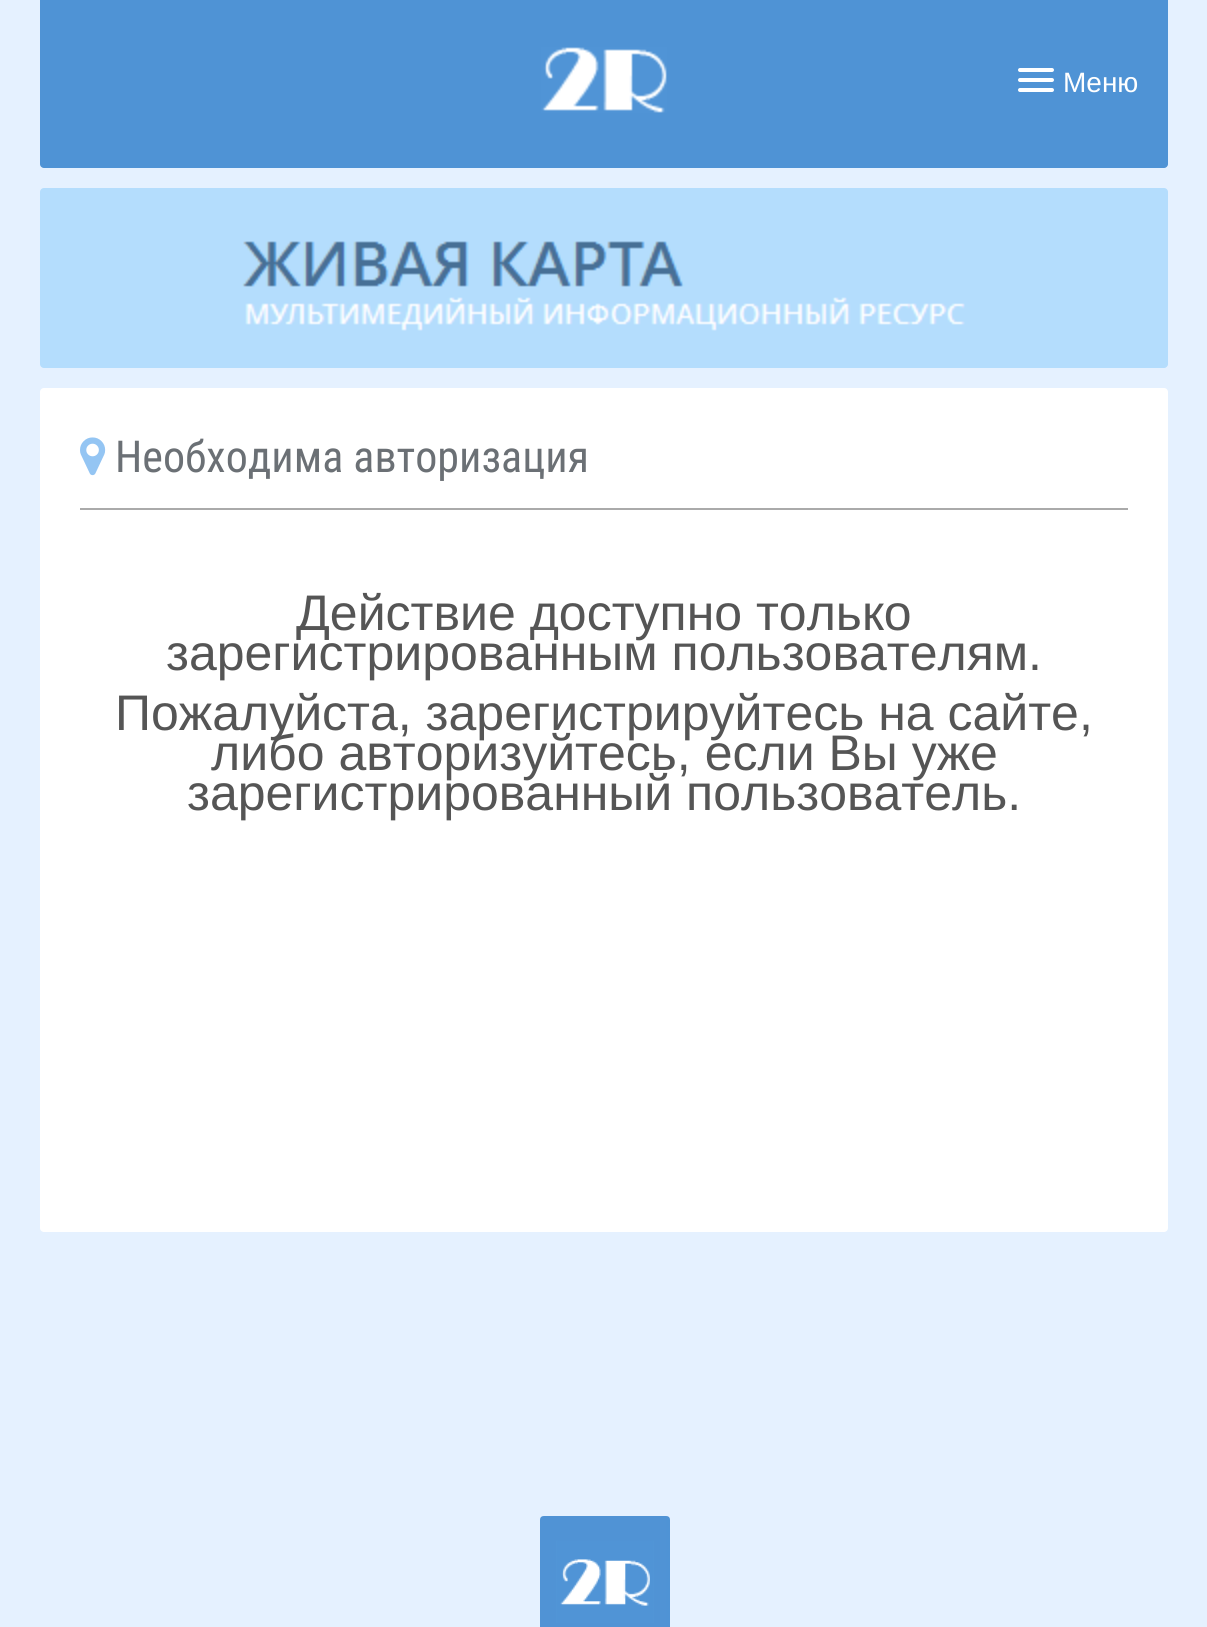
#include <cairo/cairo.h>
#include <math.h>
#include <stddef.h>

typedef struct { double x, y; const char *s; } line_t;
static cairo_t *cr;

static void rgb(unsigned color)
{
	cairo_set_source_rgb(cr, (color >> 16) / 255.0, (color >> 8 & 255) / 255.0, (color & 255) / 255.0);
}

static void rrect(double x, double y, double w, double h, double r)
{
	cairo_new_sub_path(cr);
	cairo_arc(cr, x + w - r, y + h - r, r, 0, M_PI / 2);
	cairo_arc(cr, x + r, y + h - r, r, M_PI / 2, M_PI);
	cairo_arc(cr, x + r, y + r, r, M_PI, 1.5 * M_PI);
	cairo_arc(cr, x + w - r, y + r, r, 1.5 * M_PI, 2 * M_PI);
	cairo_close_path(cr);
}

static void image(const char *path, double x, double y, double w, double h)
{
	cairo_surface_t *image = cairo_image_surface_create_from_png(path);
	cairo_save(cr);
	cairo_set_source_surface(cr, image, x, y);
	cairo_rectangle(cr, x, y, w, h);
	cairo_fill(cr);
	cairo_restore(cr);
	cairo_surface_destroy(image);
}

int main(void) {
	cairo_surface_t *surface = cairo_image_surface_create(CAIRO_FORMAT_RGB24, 1207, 1627);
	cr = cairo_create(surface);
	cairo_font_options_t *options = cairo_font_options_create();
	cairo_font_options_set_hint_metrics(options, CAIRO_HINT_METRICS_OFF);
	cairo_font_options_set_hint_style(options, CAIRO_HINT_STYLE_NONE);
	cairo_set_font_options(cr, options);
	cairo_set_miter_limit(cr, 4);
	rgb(0xe5f1ff);
	cairo_paint(cr);
	rgb(0x4f93d5);
	rrect(40, -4, 1128, 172, 4);
	cairo_fill(cr);
	image("img/1.png", 541, 47, 126, 66);
	rgb(0xb4ddfd);
	rrect(40, 188, 1128, 180, 4);
	cairo_fill(cr);
	image("img/2.png", 242, 241, 723, 90);
	rgb(0xffffff);
	rrect(1018, 68, 36, 4, 2);
	cairo_fill(cr);
	rrect(1018, 78, 36, 4, 2);
	cairo_fill(cr);
	rrect(1018, 88, 36, 4, 2);
	cairo_fill(cr);
	rrect(40, 388, 1128, 844, 4);
	cairo_fill(cr);
	image("img/3.png", 80, 437, 26, 39);
	rgb(0xaaaaaa);
	cairo_rectangle(cr, 80, 508, 1048, 2);
	cairo_fill(cr);
	image("img/4.png", 540, 1516, 130, 111);
	cairo_select_font_face(cr, "Liberation Sans", CAIRO_FONT_SLANT_NORMAL, CAIRO_FONT_WEIGHT_NORMAL);
	cairo_set_font_size(cr, 28);
	rgb(0xffffff);
	cairo_move_to(cr, 1063, 92);
	cairo_show_text(cr, "Меню");
	cairo_select_font_face(cr, "Roboto Condensed", CAIRO_FONT_SLANT_NORMAL, CAIRO_FONT_WEIGHT_NORMAL);
	cairo_set_font_size(cr, 44);
	rgb(0x6b7075);
	cairo_move_to(cr, 115, 472);
	cairo_show_text(cr, "Необходима авторизация");
	cairo_select_font_face(cr, "Liberation Sans", CAIRO_FONT_SLANT_NORMAL, CAIRO_FONT_WEIGHT_NORMAL);
	cairo_set_font_size(cr, 50);
	rgb(0x555555);
	{
		static const line_t items[] = {
			{296, 630, "Действие доступно только"},
			{166, 670, "зарегистрированным пользователям."},
			{115, 730, "Пожалуйста, зарегистрируйтесь на сайте,"},
			{211, 770, "либо авторизуйтесь, если Вы уже"},
			{187, 810, "зарегистрированный пользователь."},
		};
		for (size_t i = 0; i < sizeof items / sizeof *items; i++) {
			cairo_move_to(cr, items[i].x, items[i].y);
			cairo_show_text(cr, items[i].s);
		}
	}
	cairo_surface_write_to_png(surface, "page.png");
	cairo_font_options_destroy(options);
	cairo_destroy(cr);
	cairo_surface_destroy(surface);
	return 0;
}
